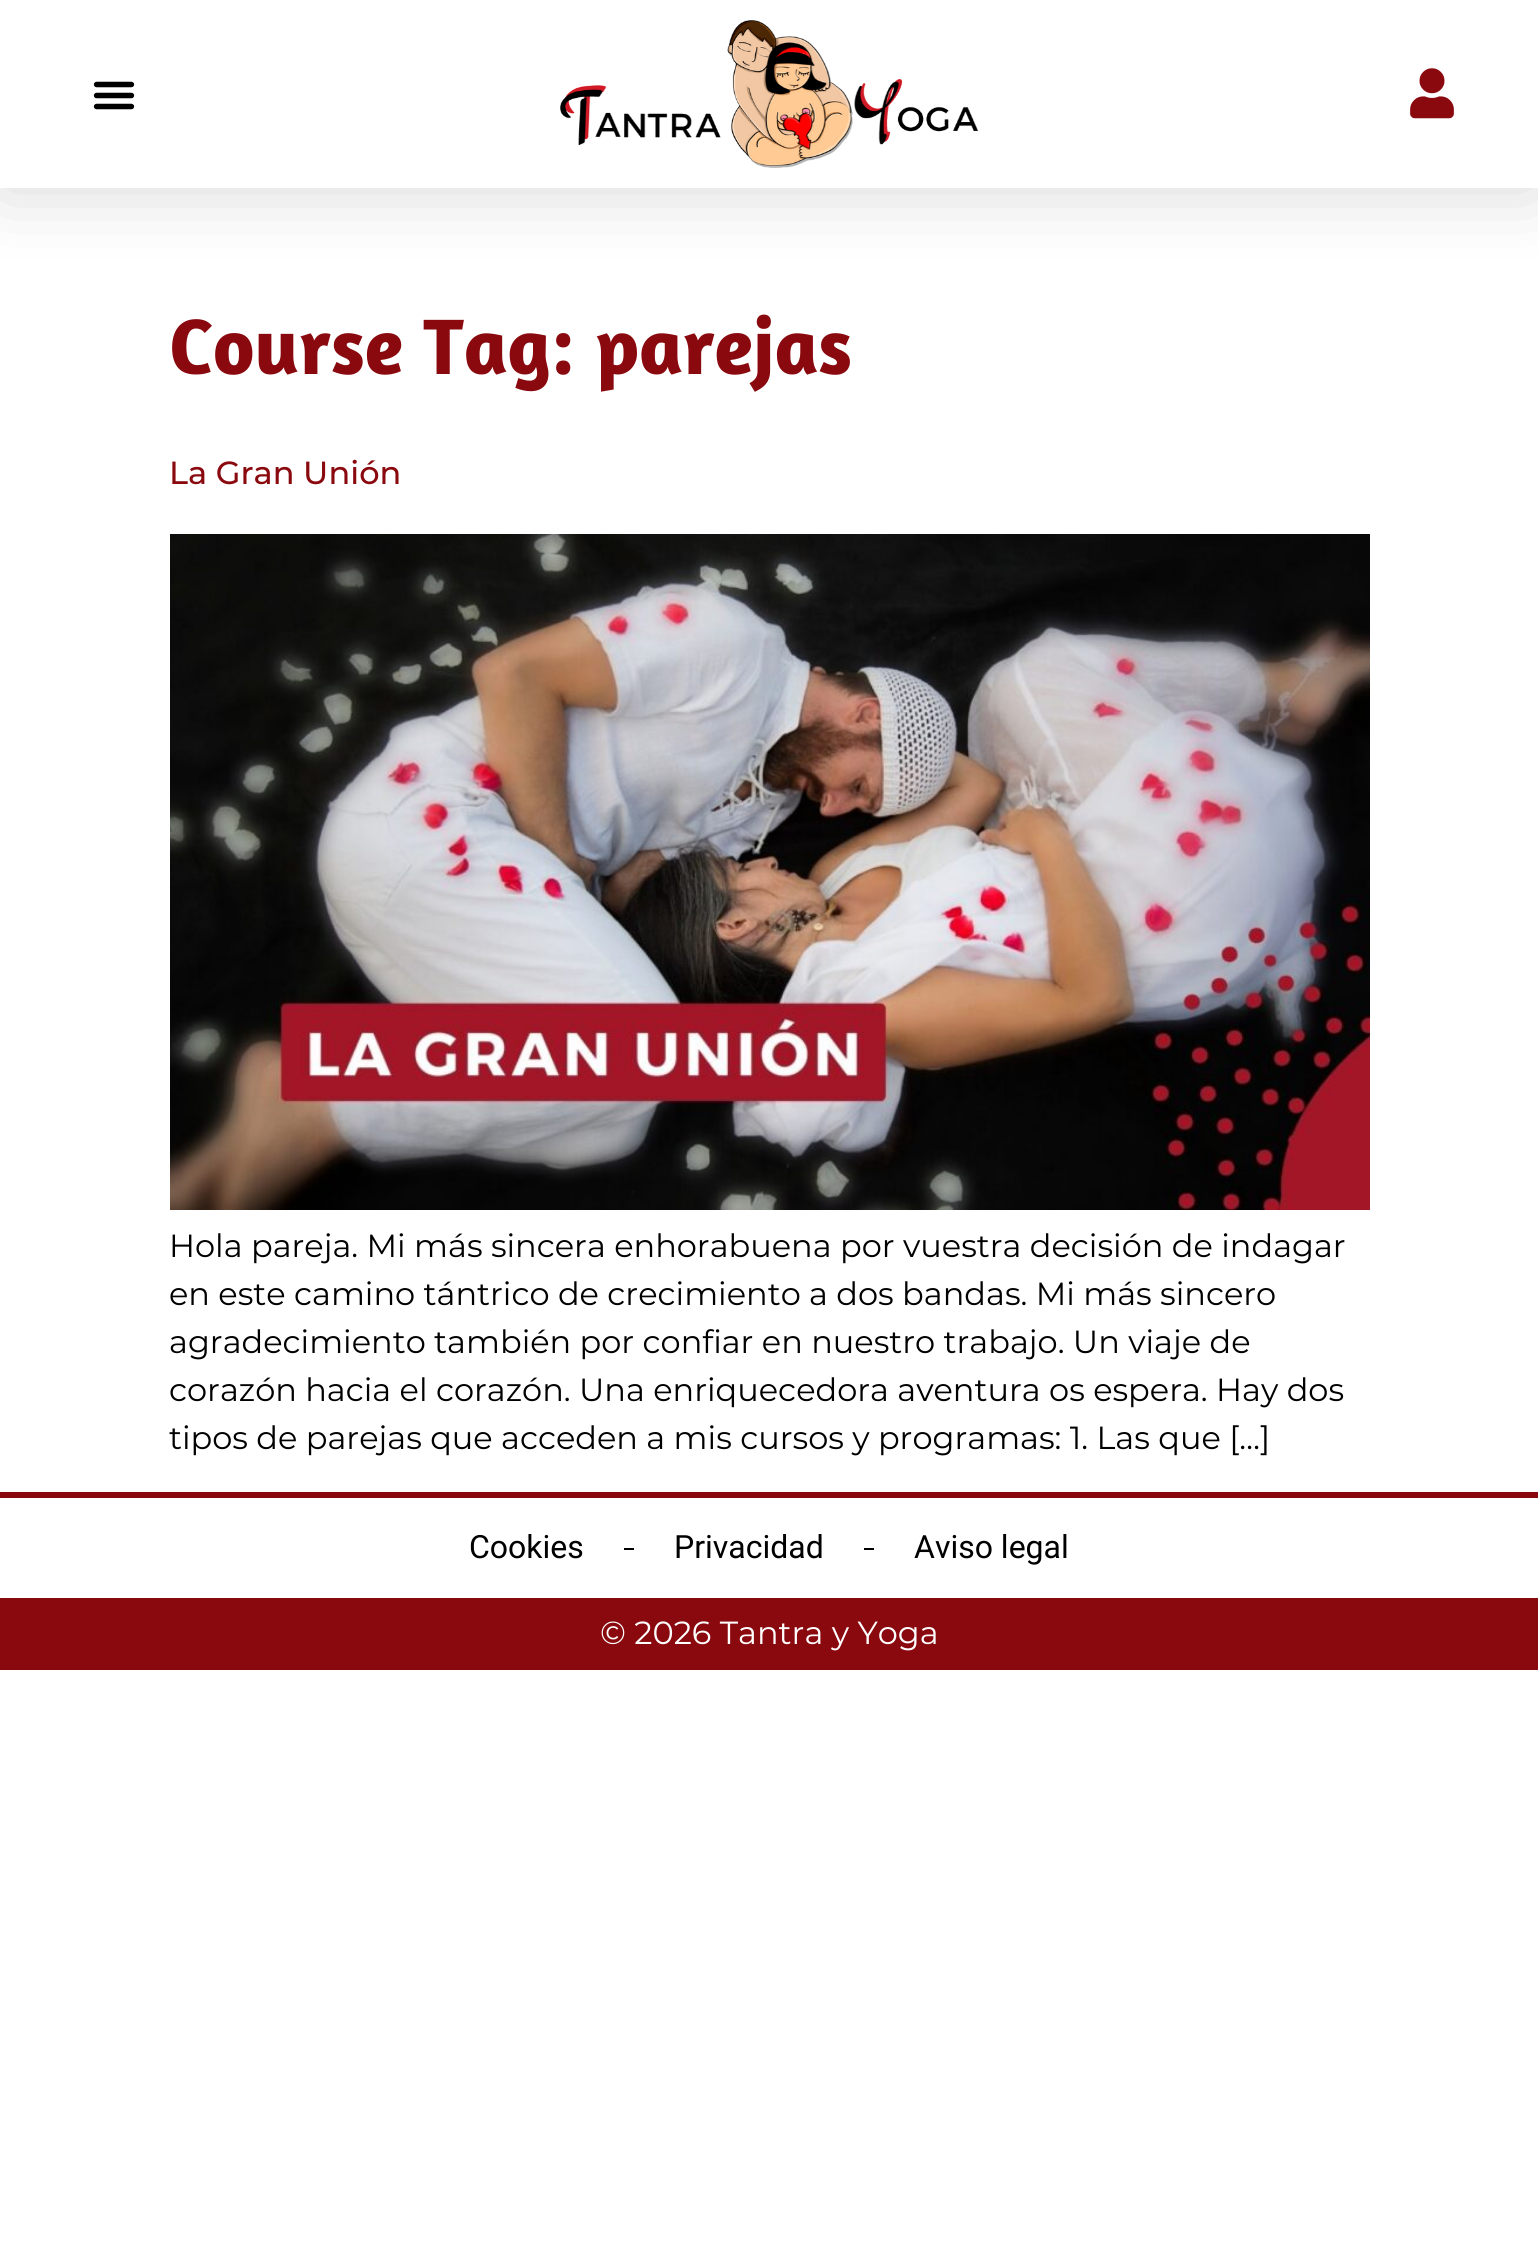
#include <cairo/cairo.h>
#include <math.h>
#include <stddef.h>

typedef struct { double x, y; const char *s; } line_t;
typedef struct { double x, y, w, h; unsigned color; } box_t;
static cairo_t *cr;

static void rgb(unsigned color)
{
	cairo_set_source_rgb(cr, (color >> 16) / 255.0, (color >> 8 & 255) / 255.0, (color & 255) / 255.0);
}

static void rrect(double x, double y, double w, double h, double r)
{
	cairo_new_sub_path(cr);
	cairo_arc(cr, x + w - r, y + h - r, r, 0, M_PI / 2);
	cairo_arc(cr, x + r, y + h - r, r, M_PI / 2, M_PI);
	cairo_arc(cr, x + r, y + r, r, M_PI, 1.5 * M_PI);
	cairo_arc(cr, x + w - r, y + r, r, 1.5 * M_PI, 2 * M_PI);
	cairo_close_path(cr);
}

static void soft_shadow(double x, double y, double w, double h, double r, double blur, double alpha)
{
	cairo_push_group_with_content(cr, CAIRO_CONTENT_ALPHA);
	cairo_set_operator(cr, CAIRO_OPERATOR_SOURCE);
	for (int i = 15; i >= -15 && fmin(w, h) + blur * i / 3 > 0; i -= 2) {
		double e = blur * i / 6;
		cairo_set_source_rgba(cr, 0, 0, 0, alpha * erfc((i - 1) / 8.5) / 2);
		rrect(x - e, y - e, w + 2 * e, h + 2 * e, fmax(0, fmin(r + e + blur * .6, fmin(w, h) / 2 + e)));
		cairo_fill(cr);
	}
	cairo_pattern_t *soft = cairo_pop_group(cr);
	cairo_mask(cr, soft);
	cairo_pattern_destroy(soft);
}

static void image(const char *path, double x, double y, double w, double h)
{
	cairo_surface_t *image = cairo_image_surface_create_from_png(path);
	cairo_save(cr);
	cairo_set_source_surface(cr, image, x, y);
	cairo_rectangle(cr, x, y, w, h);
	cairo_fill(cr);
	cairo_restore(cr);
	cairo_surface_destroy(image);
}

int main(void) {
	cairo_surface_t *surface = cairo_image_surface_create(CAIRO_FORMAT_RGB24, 1538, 2242);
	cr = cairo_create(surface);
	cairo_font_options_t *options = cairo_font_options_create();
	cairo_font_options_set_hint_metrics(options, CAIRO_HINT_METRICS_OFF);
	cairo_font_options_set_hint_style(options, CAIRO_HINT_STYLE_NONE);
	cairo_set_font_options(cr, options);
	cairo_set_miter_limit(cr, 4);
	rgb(0xffffff);
	cairo_paint(cr);
	rgb(0x000000);
	soft_shadow(0, 0, 1538, 188, 0, 40, 0.16);
	rgb(0xffffff);
	cairo_rectangle(cr, 0, 0, 1538, 188);
	cairo_fill(cr);
	image("img/1.png", 93, 81, 42, 29);
	image("img/2.png", 560, 20, 418, 148);
	image("img/3.png", 1410, 68, 44, 51);
	image("img/4.png", 170, 534, 1200, 676);
	{
		static const box_t items[] = {
			{0, 1492, 1538, 6, 0x8a090e},
			{624, 1548, 10, 2, 0x000000},
			{864, 1548, 10, 2, 0x000000},
			{0, 1598, 1538, 72, 0x8a090e},
		};
		for (size_t i = 0; i < sizeof items / sizeof *items; i++) {
			rgb(items[i].color);
			cairo_rectangle(cr, items[i].x, items[i].y, items[i].w, items[i].h);
			cairo_fill(cr);
		}
	}
	cairo_select_font_face(cr, "Amaranth", CAIRO_FONT_SLANT_NORMAL, CAIRO_FONT_WEIGHT_BOLD);
	cairo_set_font_size(cr, 80);
	cairo_move_to(cr, 169, 374);
	cairo_show_text(cr, "Course Tag: parejas");
	cairo_select_font_face(cr, "Montserrat Medium", CAIRO_FONT_SLANT_NORMAL, CAIRO_FONT_WEIGHT_NORMAL);
	cairo_set_font_size(cr, 32);
	cairo_move_to(cr, 169, 484);
	cairo_show_text(cr, "La Gran Unión");
	cairo_select_font_face(cr, "Montserrat", CAIRO_FONT_SLANT_NORMAL, CAIRO_FONT_WEIGHT_NORMAL);
	rgb(0x000000);
	{
		static const line_t items[] = {
			{169, 1257, "Hola pareja. Mi más sincera enhorabuena por vuestra decisión de indagar"},
			{169, 1305, "en este camino tántrico de crecimiento a dos bandas. Mi más sincero"},
			{169, 1353, "agradecimiento también por confiar en nuestro trabajo. Un viaje de"},
			{169, 1401, "corazón hacia el corazón. Una enriquecedora aventura os espera. Hay dos"},
			{169, 1449, "tipos de parejas que acceden a mis cursos y programas: 1. Las que […]"},
		};
		for (size_t i = 0; i < sizeof items / sizeof *items; i++) {
			cairo_move_to(cr, items[i].x, items[i].y);
			cairo_show_text(cr, items[i].s);
		}
	}
	cairo_select_font_face(cr, "Roboto", CAIRO_FONT_SLANT_NORMAL, CAIRO_FONT_WEIGHT_NORMAL);
	{
		static const line_t items[] = {
			{469, 1558, "Cookies"},
			{674, 1558, "Privacidad"},
			{914, 1558, "Aviso legal"},
		};
		for (size_t i = 0; i < sizeof items / sizeof *items; i++) {
			cairo_move_to(cr, items[i].x, items[i].y);
			cairo_show_text(cr, items[i].s);
		}
	}
	cairo_select_font_face(cr, "Montserrat", CAIRO_FONT_SLANT_NORMAL, CAIRO_FONT_WEIGHT_NORMAL);
	rgb(0xffffff);
	cairo_move_to(cr, 600, 1644);
	cairo_show_text(cr, "© 2026 Tantra y Yoga");
	cairo_surface_write_to_png(surface, "page.png");
	cairo_font_options_destroy(options);
	cairo_destroy(cr);
	cairo_surface_destroy(surface);
	return 0;
}
